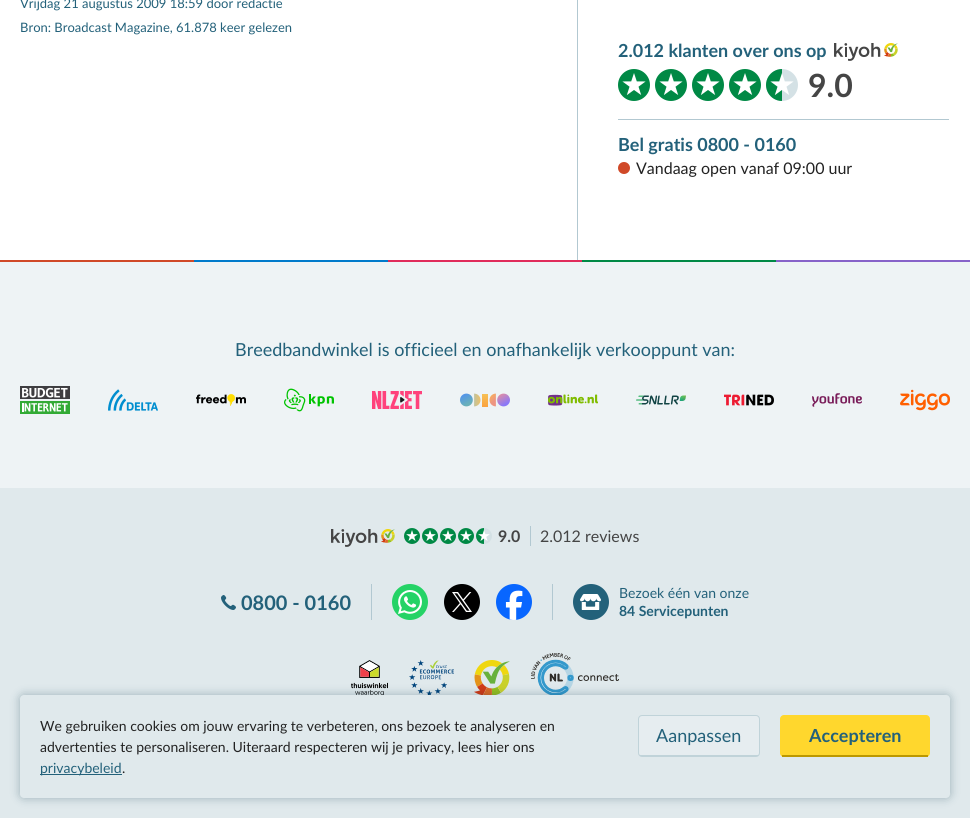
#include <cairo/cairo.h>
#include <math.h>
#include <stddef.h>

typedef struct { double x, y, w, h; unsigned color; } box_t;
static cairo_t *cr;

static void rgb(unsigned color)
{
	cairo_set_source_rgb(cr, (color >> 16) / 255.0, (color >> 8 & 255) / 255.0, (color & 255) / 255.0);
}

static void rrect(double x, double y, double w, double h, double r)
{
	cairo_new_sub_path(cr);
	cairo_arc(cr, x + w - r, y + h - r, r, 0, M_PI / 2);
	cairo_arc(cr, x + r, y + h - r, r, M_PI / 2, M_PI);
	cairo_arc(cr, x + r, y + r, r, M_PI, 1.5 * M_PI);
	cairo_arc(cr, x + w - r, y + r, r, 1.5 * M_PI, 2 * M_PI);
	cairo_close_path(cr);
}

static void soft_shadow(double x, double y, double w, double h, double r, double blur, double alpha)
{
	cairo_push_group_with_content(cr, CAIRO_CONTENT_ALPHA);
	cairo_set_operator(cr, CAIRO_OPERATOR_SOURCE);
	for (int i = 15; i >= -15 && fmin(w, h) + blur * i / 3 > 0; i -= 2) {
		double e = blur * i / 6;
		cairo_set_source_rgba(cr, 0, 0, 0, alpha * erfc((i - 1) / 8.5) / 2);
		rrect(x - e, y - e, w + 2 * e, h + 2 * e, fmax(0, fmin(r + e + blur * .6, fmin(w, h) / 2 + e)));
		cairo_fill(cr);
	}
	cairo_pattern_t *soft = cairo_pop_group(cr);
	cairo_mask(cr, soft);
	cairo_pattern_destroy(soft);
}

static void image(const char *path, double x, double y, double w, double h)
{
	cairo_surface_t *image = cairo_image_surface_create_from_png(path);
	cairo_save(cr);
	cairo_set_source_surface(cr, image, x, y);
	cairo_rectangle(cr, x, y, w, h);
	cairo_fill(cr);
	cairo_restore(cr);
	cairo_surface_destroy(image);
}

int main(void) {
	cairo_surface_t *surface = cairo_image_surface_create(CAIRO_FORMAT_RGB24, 970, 818);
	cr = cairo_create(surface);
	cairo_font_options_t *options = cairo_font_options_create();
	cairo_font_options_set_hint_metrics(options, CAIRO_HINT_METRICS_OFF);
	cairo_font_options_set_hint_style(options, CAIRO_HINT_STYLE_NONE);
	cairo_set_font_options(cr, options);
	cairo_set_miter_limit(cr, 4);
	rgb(0xffffff);
	cairo_paint(cr);
	rgb(0xb2c8d1);
	cairo_rectangle(cr, 577, 0, 1, 260);
	cairo_fill(cr);
	image("img/1.png", 834, 43, 64, 18);
	image("img/2.png", 618, 69, 32, 32);
	image("img/2.png", 655, 69, 32, 32);
	image("img/2.png", 692, 69, 32, 32);
	image("img/2.png", 729, 69, 32, 32);
	image("img/3.png", 766, 69, 32, 32);
	image("img/4.png", 766, 69, 16, 32);
	cairo_rectangle(cr, 618, 119, 331, 1);
	cairo_fill(cr);
	rgb(0xd04928);
	cairo_arc(cr, 624, 168, 6, 0, 2 * M_PI);
	cairo_fill(cr);
	{
		static const box_t items[] = {
			{0, 488, 970, 330, 0xe0e9ec},
			{0, 260, 194, 2, 0xd04928},
			{194, 260, 194, 2, 0x007acb},
			{388, 260, 194, 2, 0xe02b5b},
			{582, 260, 194, 2, 0x008945},
			{776, 260, 194, 2, 0x8763c9},
			{0, 262, 970, 226, 0xeef3f5},
		};
		for (size_t i = 0; i < sizeof items / sizeof *items; i++) {
			rgb(items[i].color);
			cairo_rectangle(cr, items[i].x, items[i].y, items[i].w, items[i].h);
			cairo_fill(cr);
		}
	}
	image("img/5.png", 20, 386, 50, 28);
	image("img/6.png", 108, 389, 50, 22);
	image("img/7.png", 196, 394, 50, 12);
	image("img/8.png", 284, 388, 50, 24);
	image("img/9.png", 372, 391, 50, 18);
	image("img/10.png", 460, 393, 50, 14);
	image("img/11.png", 548, 394, 50, 12);
	image("img/12.png", 636, 395, 50, 10);
	image("img/13.png", 724, 394, 50, 12);
	image("img/14.png", 812, 393, 50, 14);
	image("img/15.png", 900, 389, 50, 22);
	image("img/16.png", 331, 529, 64, 18);
	image("img/17.png", 404, 528, 16, 16);
	image("img/17.png", 422, 528, 16, 16);
	image("img/17.png", 440, 528, 16, 16);
	image("img/17.png", 458, 528, 16, 16);
	image("img/18.png", 476, 528, 16, 16);
	image("img/19.png", 476, 528, 8, 16);
	rgb(0xb2c8d1);
	cairo_rectangle(cr, 530, 526, 1, 20);
	cairo_fill(cr);
	image("img/20.png", 221, 595, 15, 15);
	cairo_rectangle(cr, 371, 584, 1, 36);
	cairo_fill(cr);
	rgb(0x25d366);
	cairo_arc(cr, 410, 602, 18, 0, 2 * M_PI);
	cairo_fill(cr);
	image("img/21.png", 398, 590, 24, 24);
	rgb(0x000000);
	cairo_arc(cr, 462, 602, 18, 0, 2 * M_PI);
	cairo_fill(cr);
	image("img/22.png", 452, 592, 20, 20);
	rgb(0x0866ff);
	cairo_arc(cr, 514, 602, 18, 0, 2 * M_PI);
	cairo_fill(cr);
	image("img/23.png", 505, 590, 18, 30);
	rgb(0xb2c8d1);
	cairo_rectangle(cr, 552, 584, 1, 36);
	cairo_fill(cr);
	rgb(0x23617a);
	cairo_arc(cr, 591, 602, 18, 0, 2 * M_PI);
	cairo_fill(cr);
	image("img/24.png", 580, 594, 21, 16);
	image("img/25.png", 351, 660, 37, 35);
	image("img/26.png", 409, 660, 45, 35);
	image("img/27.png", 474, 660, 36, 35);
	image("img/28.png", 531, 653, 88, 42);
	rgb(0x002e40);
	soft_shadow(20, 695, 930, 103, 4, 5, 0.3);
	rgb(0xe0e9ec);
	rrect(20, 695, 930, 103, 4);
	cairo_fill(cr);
	rgb(0x23617a);
	cairo_rectangle(cr, 40, 774, 82, 1);
	cairo_fill(cr);
	rgb(0xe6edf0);
	cairo_new_path(cr);
	cairo_move_to(cr, 642, 716);
	cairo_line_to(cr, 756, 716);
	cairo_curve_to(cr, 758, 716, 759, 717, 759, 719);
	cairo_line_to(cr, 759, 753);
	cairo_curve_to(cr, 759, 754, 758, 755, 756, 755);
	cairo_line_to(cr, 642, 755);
	cairo_curve_to(cr, 640, 755, 639, 754, 639, 753);
	cairo_line_to(cr, 639, 719);
	cairo_curve_to(cr, 639, 717, 640, 716, 642, 716);
	cairo_close_path(cr);
	cairo_fill(cr);
	rrect(638.5, 715.5, 121, 41, 3.5);
	rgb(0xc0d3d9);
	cairo_set_line_width(cr, 1);
	cairo_stroke(cr);
	cairo_rectangle(cr, 640, 755, 118, 1);
	cairo_fill(cr);
	rgb(0xffd72d);
	rrect(780, 715, 150, 42, 4);
	cairo_fill(cr);
	rgb(0xbc9800);
	cairo_rectangle(cr, 782, 755, 146, 2);
	cairo_fill(cr);
	cairo_select_font_face(cr, "Lato", CAIRO_FONT_SLANT_NORMAL, CAIRO_FONT_WEIGHT_NORMAL);
	cairo_set_font_size(cr, 13);
	rgb(0x23617a);
	cairo_move_to(cr, 20, 8);
	cairo_show_text(cr, "Vrijdag 21 augustus 2009 18:59 door redactie");
	cairo_move_to(cr, 20, 32);
	cairo_show_text(cr, "Bron: Broadcast Magazine, 61.878 keer gelezen");
	cairo_select_font_face(cr, "Lato", CAIRO_FONT_SLANT_NORMAL, CAIRO_FONT_WEIGHT_BOLD);
	cairo_set_font_size(cr, 18);
	cairo_move_to(cr, 618, 57);
	cairo_show_text(cr, "2.012 klanten over ons op");
	cairo_set_font_size(cr, 32);
	rgb(0x454545);
	cairo_move_to(cr, 808, 97);
	cairo_show_text(cr, "9.0");
	cairo_set_font_size(cr, 18);
	rgb(0x23617a);
	cairo_move_to(cr, 618, 151);
	cairo_show_text(cr, "Bel gratis 0800 - 0160");
	cairo_select_font_face(cr, "Lato", CAIRO_FONT_SLANT_NORMAL, CAIRO_FONT_WEIGHT_NORMAL);
	cairo_set_font_size(cr, 16);
	rgb(0x222222);
	cairo_move_to(cr, 636, 174);
	cairo_show_text(cr, "Vandaag open vanaf 09:00 uur");
	cairo_set_font_size(cr, 18);
	rgb(0x23617a);
	cairo_move_to(cr, 235, 356);
	cairo_show_text(cr, "Breedbandwinkel is officieel en onafhankelijk verkooppunt van:");
	cairo_select_font_face(cr, "Lato", CAIRO_FONT_SLANT_NORMAL, CAIRO_FONT_WEIGHT_BOLD);
	cairo_set_font_size(cr, 16);
	rgb(0x454545);
	cairo_move_to(cr, 498, 542);
	cairo_show_text(cr, "9.0");
	cairo_select_font_face(cr, "Lato", CAIRO_FONT_SLANT_NORMAL, CAIRO_FONT_WEIGHT_NORMAL);
	cairo_move_to(cr, 540, 542);
	cairo_show_text(cr, "2.012 reviews");
	cairo_select_font_face(cr, "Lato", CAIRO_FONT_SLANT_NORMAL, CAIRO_FONT_WEIGHT_BOLD);
	cairo_set_font_size(cr, 20);
	rgb(0x23617a);
	cairo_move_to(cr, 241, 610);
	cairo_show_text(cr, "0800 - 0160");
	cairo_select_font_face(cr, "Lato", CAIRO_FONT_SLANT_NORMAL, CAIRO_FONT_WEIGHT_NORMAL);
	cairo_set_font_size(cr, 14);
	cairo_move_to(cr, 619, 598);
	cairo_show_text(cr, "Bezoek één van onze");
	cairo_select_font_face(cr, "Lato", CAIRO_FONT_SLANT_NORMAL, CAIRO_FONT_WEIGHT_BOLD);
	cairo_move_to(cr, 619, 616);
	cairo_show_text(cr, "84 Servicepunten");
	cairo_select_font_face(cr, "Lato", CAIRO_FONT_SLANT_NORMAL, CAIRO_FONT_WEIGHT_NORMAL);
	rgb(0x222222);
	cairo_move_to(cr, 40, 731);
	cairo_show_text(cr, "We gebruiken cookies om jouw ervaring te verbeteren, ons bezoek te analyseren en");
	cairo_move_to(cr, 40, 752);
	cairo_show_text(cr, "advertenties te personaliseren. Uiteraard respecteren wij je privacy, lees hier ons");
	rgb(0x23617a);
	cairo_move_to(cr, 40, 773);
	cairo_show_text(cr, "privacybeleid");
	rgb(0x222222);
	cairo_move_to(cr, 122, 773);
	cairo_show_text(cr, ".");
	cairo_set_font_size(cr, 18);
	rgb(0x23617a);
	cairo_move_to(cr, 656, 742);
	cairo_show_text(cr, "Aanpassen");
	cairo_select_font_face(cr, "Lato", CAIRO_FONT_SLANT_NORMAL, CAIRO_FONT_WEIGHT_BOLD);
	cairo_move_to(cr, 809, 742);
	cairo_show_text(cr, "Accepteren");
	cairo_surface_write_to_png(surface, "page.png");
	cairo_font_options_destroy(options);
	cairo_destroy(cr);
	cairo_surface_destroy(surface);
	return 0;
}
